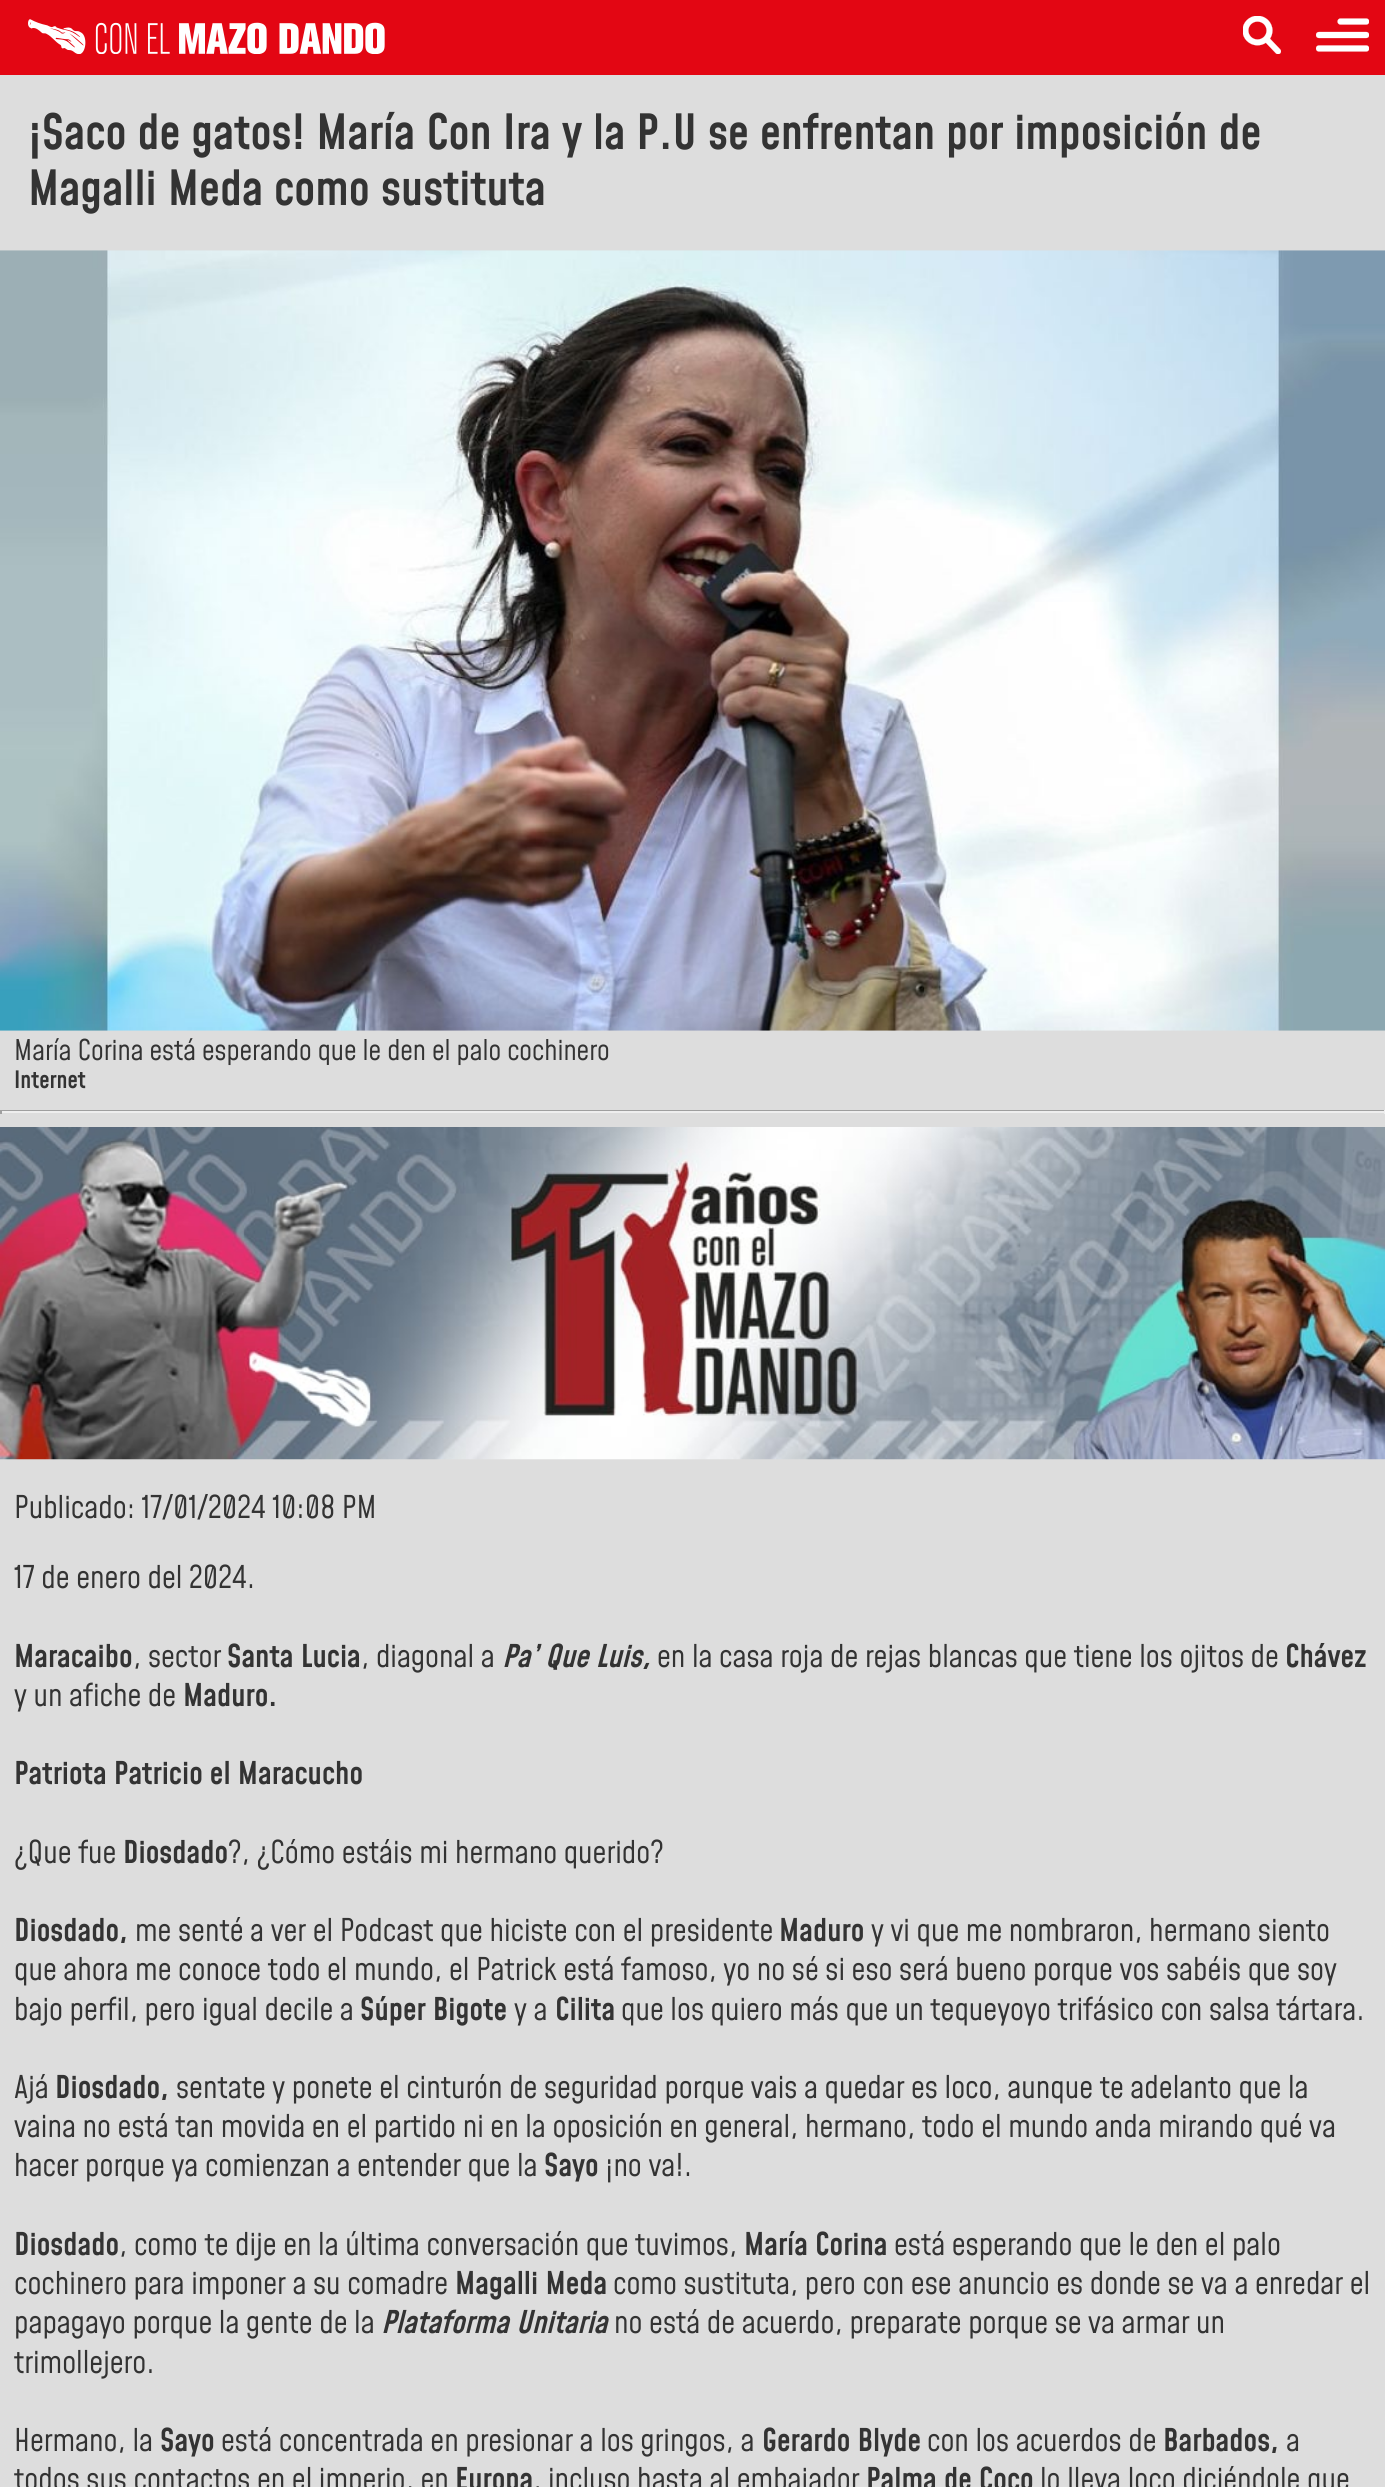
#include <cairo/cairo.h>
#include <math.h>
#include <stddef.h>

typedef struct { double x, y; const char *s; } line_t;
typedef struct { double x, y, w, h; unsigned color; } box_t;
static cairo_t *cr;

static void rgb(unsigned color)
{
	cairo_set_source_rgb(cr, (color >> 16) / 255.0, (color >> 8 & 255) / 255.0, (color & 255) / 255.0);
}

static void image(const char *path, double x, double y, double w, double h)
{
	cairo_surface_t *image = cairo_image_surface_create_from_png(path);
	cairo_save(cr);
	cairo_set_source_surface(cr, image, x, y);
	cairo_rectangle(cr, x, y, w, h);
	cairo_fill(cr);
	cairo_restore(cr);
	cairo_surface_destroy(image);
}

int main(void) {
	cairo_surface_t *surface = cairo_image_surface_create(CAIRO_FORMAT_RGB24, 1385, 2487);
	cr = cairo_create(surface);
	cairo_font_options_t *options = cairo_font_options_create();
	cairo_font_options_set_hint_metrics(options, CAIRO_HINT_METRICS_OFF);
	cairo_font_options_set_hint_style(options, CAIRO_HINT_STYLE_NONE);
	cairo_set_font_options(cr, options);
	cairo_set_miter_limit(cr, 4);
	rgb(0xdddddd);
	cairo_paint(cr);
	rgb(0xe30613);
	cairo_rectangle(cr, 0, 0, 1385, 75);
	cairo_fill(cr);
	image("img/1.png", 28, 19, 357, 35);
	image("img/2.png", 1243, 16, 38, 38);
	image("img/3.png", 1316, 18, 53, 34);
	image("img/4.png", 0, 250, 1385, 781);
	{
		static const box_t items[] = {
			{0, 1110, 1385, 1, 0x9f9f9f},
			{1384, 1110, 1, 4, 0xeeeeee},
			{0, 1111, 1385, 2, 0xeeeeee},
			{0, 1110, 2, 4, 0x9f9f9f},
		};
		for (size_t i = 0; i < sizeof items / sizeof *items; i++) {
			rgb(items[i].color);
			cairo_rectangle(cr, items[i].x, items[i].y, items[i].w, items[i].h);
			cairo_fill(cr);
		}
	}
	image("img/5.png", 0, 1127, 1385, 333);
	cairo_select_font_face(cr, "Mohave SemiBold", CAIRO_FONT_SLANT_NORMAL, CAIRO_FONT_WEIGHT_NORMAL);
	cairo_set_font_size(cr, 47.6);
	rgb(0x333333);
	cairo_move_to(cr, 28, 149);
	cairo_show_text(cr, "¡Saco de gatos! María Con Ira y la P.U se enfrentan por imposición de");
	cairo_move_to(cr, 28, 205);
	cairo_show_text(cr, "Magalli Meda como sustituta");
	cairo_select_font_face(cr, "Mohave Light", CAIRO_FONT_SLANT_NORMAL, CAIRO_FONT_WEIGHT_NORMAL);
	cairo_set_font_size(cr, 28);
	cairo_move_to(cr, 14, 1060);
	cairo_show_text(cr, "María Corina está esperando que le den el palo cochinero");
	cairo_select_font_face(cr, "Mohave SemiBold", CAIRO_FONT_SLANT_NORMAL, CAIRO_FONT_WEIGHT_NORMAL);
	cairo_set_font_size(cr, 23.5);
	cairo_move_to(cr, 14, 1088);
	cairo_show_text(cr, "Internet");
	cairo_select_font_face(cr, "Mohave Light", CAIRO_FONT_SLANT_NORMAL, CAIRO_FONT_WEIGHT_NORMAL);
	cairo_set_font_size(cr, 30.8);
	cairo_move_to(cr, 14, 1518);
	cairo_show_text(cr, "Publicado: 17/01/2024 10:08 PM");
	cairo_move_to(cr, 14, 1588);
	cairo_show_text(cr, "17 de enero del 2024.");
	cairo_select_font_face(cr, "Mohave SemiBold", CAIRO_FONT_SLANT_NORMAL, CAIRO_FONT_WEIGHT_NORMAL);
	cairo_move_to(cr, 14, 1667);
	cairo_show_text(cr, "Maracaibo");
	cairo_select_font_face(cr, "Mohave Light", CAIRO_FONT_SLANT_NORMAL, CAIRO_FONT_WEIGHT_NORMAL);
	cairo_move_to(cr, 133, 1667);
	cairo_show_text(cr, ", sector");
	cairo_select_font_face(cr, "Mohave SemiBold", CAIRO_FONT_SLANT_NORMAL, CAIRO_FONT_WEIGHT_NORMAL);
	cairo_move_to(cr, 227, 1667);
	cairo_show_text(cr, "Santa Lucia");
	cairo_select_font_face(cr, "Mohave Light", CAIRO_FONT_SLANT_NORMAL, CAIRO_FONT_WEIGHT_NORMAL);
	cairo_move_to(cr, 361, 1667);
	cairo_show_text(cr, ", diagonal a");
	cairo_select_font_face(cr, "Mohave SemiBold", CAIRO_FONT_SLANT_ITALIC, CAIRO_FONT_WEIGHT_NORMAL);
	cairo_move_to(cr, 502, 1667);
	cairo_show_text(cr, "Pa’ Que Luis,");
	cairo_select_font_face(cr, "Mohave Light", CAIRO_FONT_SLANT_NORMAL, CAIRO_FONT_WEIGHT_NORMAL);
	cairo_move_to(cr, 657, 1667);
	cairo_show_text(cr, "en la casa roja de rejas blancas que tiene los ojitos de");
	cairo_select_font_face(cr, "Mohave SemiBold", CAIRO_FONT_SLANT_NORMAL, CAIRO_FONT_WEIGHT_NORMAL);
	cairo_move_to(cr, 1285, 1667);
	cairo_show_text(cr, "Chávez");
	cairo_select_font_face(cr, "Mohave Light", CAIRO_FONT_SLANT_NORMAL, CAIRO_FONT_WEIGHT_NORMAL);
	cairo_move_to(cr, 14, 1706);
	cairo_show_text(cr, "y un afiche de");
	cairo_select_font_face(cr, "Mohave SemiBold", CAIRO_FONT_SLANT_NORMAL, CAIRO_FONT_WEIGHT_NORMAL);
	cairo_move_to(cr, 183, 1706);
	cairo_show_text(cr, "Maduro.");
	cairo_move_to(cr, 14, 1784);
	cairo_show_text(cr, "Patriota Patricio el Maracucho");
	cairo_select_font_face(cr, "Mohave Light", CAIRO_FONT_SLANT_NORMAL, CAIRO_FONT_WEIGHT_NORMAL);
	cairo_move_to(cr, 14, 1863);
	cairo_show_text(cr, "¿Que fue");
	cairo_select_font_face(cr, "Mohave SemiBold", CAIRO_FONT_SLANT_NORMAL, CAIRO_FONT_WEIGHT_NORMAL);
	cairo_move_to(cr, 123, 1863);
	cairo_show_text(cr, "Diosdado");
	cairo_select_font_face(cr, "Mohave Light", CAIRO_FONT_SLANT_NORMAL, CAIRO_FONT_WEIGHT_NORMAL);
	cairo_move_to(cr, 228, 1863);
	cairo_show_text(cr, "?, ¿Cómo estáis mi hermano querido?");
	cairo_select_font_face(cr, "Mohave SemiBold", CAIRO_FONT_SLANT_NORMAL, CAIRO_FONT_WEIGHT_NORMAL);
	cairo_move_to(cr, 14, 1941);
	cairo_show_text(cr, "Diosdado,");
	cairo_select_font_face(cr, "Mohave Light", CAIRO_FONT_SLANT_NORMAL, CAIRO_FONT_WEIGHT_NORMAL);
	cairo_move_to(cr, 135, 1941);
	cairo_show_text(cr, "me senté a ver el Podcast que hiciste con el presidente");
	cairo_select_font_face(cr, "Mohave SemiBold", CAIRO_FONT_SLANT_NORMAL, CAIRO_FONT_WEIGHT_NORMAL);
	cairo_move_to(cr, 779, 1941);
	cairo_show_text(cr, "Maduro");
	cairo_select_font_face(cr, "Mohave Light", CAIRO_FONT_SLANT_NORMAL, CAIRO_FONT_WEIGHT_NORMAL);
	{
		static const line_t items[] = {
			{871, 1941, "y vi que me nombraron, hermano siento"},
			{14, 1980, "que ahora me conoce todo el mundo, el Patrick está famoso, yo no sé si eso será bueno porque vos sabéis que soy"},
			{14, 2020, "bajo perfil, pero igual decile a"},
		};
		for (size_t i = 0; i < sizeof items / sizeof *items; i++) {
			cairo_move_to(cr, items[i].x, items[i].y);
			cairo_show_text(cr, items[i].s);
		}
	}
	cairo_select_font_face(cr, "Mohave SemiBold", CAIRO_FONT_SLANT_NORMAL, CAIRO_FONT_WEIGHT_NORMAL);
	cairo_move_to(cr, 360, 2020);
	cairo_show_text(cr, "Súper Bigote");
	cairo_select_font_face(cr, "Mohave Light", CAIRO_FONT_SLANT_NORMAL, CAIRO_FONT_WEIGHT_NORMAL);
	cairo_move_to(cr, 514, 2020);
	cairo_show_text(cr, "y a");
	cairo_select_font_face(cr, "Mohave SemiBold", CAIRO_FONT_SLANT_NORMAL, CAIRO_FONT_WEIGHT_NORMAL);
	cairo_move_to(cr, 555, 2020);
	cairo_show_text(cr, "Cilita");
	cairo_select_font_face(cr, "Mohave Light", CAIRO_FONT_SLANT_NORMAL, CAIRO_FONT_WEIGHT_NORMAL);
	cairo_move_to(cr, 621, 2020);
	cairo_show_text(cr, "que los quiero más que un tequeyoyo trifásico con salsa tártara.");
	cairo_move_to(cr, 14, 2098);
	cairo_show_text(cr, "Ajá");
	cairo_select_font_face(cr, "Mohave SemiBold", CAIRO_FONT_SLANT_NORMAL, CAIRO_FONT_WEIGHT_NORMAL);
	cairo_move_to(cr, 55, 2098);
	cairo_show_text(cr, "Diosdado,");
	cairo_select_font_face(cr, "Mohave Light", CAIRO_FONT_SLANT_NORMAL, CAIRO_FONT_WEIGHT_NORMAL);
	{
		static const line_t items[] = {
			{176, 2098, "sentate y ponete el cinturón de seguridad porque vais a quedar es loco, aunque te adelanto que la"},
			{14, 2137, "vaina no está tan movida en el partido ni en la oposición en general, hermano, todo el mundo anda mirando qué va"},
			{14, 2176, "hacer porque ya comienzan a entender que la"},
		};
		for (size_t i = 0; i < sizeof items / sizeof *items; i++) {
			cairo_move_to(cr, items[i].x, items[i].y);
			cairo_show_text(cr, items[i].s);
		}
	}
	cairo_select_font_face(cr, "Mohave SemiBold", CAIRO_FONT_SLANT_NORMAL, CAIRO_FONT_WEIGHT_NORMAL);
	cairo_move_to(cr, 544, 2176);
	cairo_show_text(cr, "Sayo");
	cairo_select_font_face(cr, "Mohave Light", CAIRO_FONT_SLANT_NORMAL, CAIRO_FONT_WEIGHT_NORMAL);
	cairo_move_to(cr, 605, 2176);
	cairo_show_text(cr, "¡no va!.");
	cairo_select_font_face(cr, "Mohave SemiBold", CAIRO_FONT_SLANT_NORMAL, CAIRO_FONT_WEIGHT_NORMAL);
	cairo_move_to(cr, 14, 2255);
	cairo_show_text(cr, "Diosdado");
	cairo_select_font_face(cr, "Mohave Light", CAIRO_FONT_SLANT_NORMAL, CAIRO_FONT_WEIGHT_NORMAL);
	cairo_move_to(cr, 119, 2255);
	cairo_show_text(cr, ", como te dije en la última conversación que tuvimos,");
	cairo_select_font_face(cr, "Mohave SemiBold", CAIRO_FONT_SLANT_NORMAL, CAIRO_FONT_WEIGHT_NORMAL);
	cairo_move_to(cr, 744, 2255);
	cairo_show_text(cr, "María Corina");
	cairo_select_font_face(cr, "Mohave Light", CAIRO_FONT_SLANT_NORMAL, CAIRO_FONT_WEIGHT_NORMAL);
	cairo_move_to(cr, 894, 2255);
	cairo_show_text(cr, "está esperando que le den el palo");
	cairo_move_to(cr, 14, 2294);
	cairo_show_text(cr, "cochinero para imponer a su comadre");
	cairo_select_font_face(cr, "Mohave SemiBold", CAIRO_FONT_SLANT_NORMAL, CAIRO_FONT_WEIGHT_NORMAL);
	cairo_move_to(cr, 455, 2294);
	cairo_show_text(cr, "Magalli Meda");
	cairo_select_font_face(cr, "Mohave Light", CAIRO_FONT_SLANT_NORMAL, CAIRO_FONT_WEIGHT_NORMAL);
	cairo_move_to(cr, 613, 2294);
	cairo_show_text(cr, "como sustituta, pero con ese anuncio es donde se va a enredar el");
	cairo_move_to(cr, 14, 2333);
	cairo_show_text(cr, "papagayo porque la gente de la");
	cairo_select_font_face(cr, "Mohave SemiBold", CAIRO_FONT_SLANT_ITALIC, CAIRO_FONT_WEIGHT_NORMAL);
	cairo_move_to(cr, 381, 2333);
	cairo_show_text(cr, "Plataforma Unitaria");
	cairo_select_font_face(cr, "Mohave Light", CAIRO_FONT_SLANT_NORMAL, CAIRO_FONT_WEIGHT_NORMAL);
	{
		static const line_t items[] = {
			{614, 2333, "no está de acuerdo, preparate porque se va armar un"},
			{14, 2373, "trimollejero."},
			{14, 2451, "Hermano, la"},
		};
		for (size_t i = 0; i < sizeof items / sizeof *items; i++) {
			cairo_move_to(cr, items[i].x, items[i].y);
			cairo_show_text(cr, items[i].s);
		}
	}
	cairo_select_font_face(cr, "Mohave SemiBold", CAIRO_FONT_SLANT_NORMAL, CAIRO_FONT_WEIGHT_NORMAL);
	cairo_move_to(cr, 160, 2451);
	cairo_show_text(cr, "Sayo");
	cairo_select_font_face(cr, "Mohave Light", CAIRO_FONT_SLANT_NORMAL, CAIRO_FONT_WEIGHT_NORMAL);
	cairo_move_to(cr, 221, 2451);
	cairo_show_text(cr, "está concentrada en presionar a los gringos, a");
	cairo_select_font_face(cr, "Mohave SemiBold", CAIRO_FONT_SLANT_NORMAL, CAIRO_FONT_WEIGHT_NORMAL);
	cairo_move_to(cr, 762, 2451);
	cairo_show_text(cr, "Gerardo Blyde");
	cairo_select_font_face(cr, "Mohave Light", CAIRO_FONT_SLANT_NORMAL, CAIRO_FONT_WEIGHT_NORMAL);
	cairo_move_to(cr, 927, 2451);
	cairo_show_text(cr, "con los acuerdos de");
	cairo_select_font_face(cr, "Mohave SemiBold", CAIRO_FONT_SLANT_NORMAL, CAIRO_FONT_WEIGHT_NORMAL);
	cairo_move_to(cr, 1163, 2451);
	cairo_show_text(cr, "Barbados,");
	cairo_select_font_face(cr, "Mohave Light", CAIRO_FONT_SLANT_NORMAL, CAIRO_FONT_WEIGHT_NORMAL);
	cairo_move_to(cr, 1286, 2451);
	cairo_show_text(cr, "a");
	cairo_move_to(cr, 14, 2490);
	cairo_show_text(cr, "todos sus contactos en el imperio, en");
	cairo_select_font_face(cr, "Mohave SemiBold", CAIRO_FONT_SLANT_NORMAL, CAIRO_FONT_WEIGHT_NORMAL);
	cairo_move_to(cr, 455, 2490);
	cairo_show_text(cr, "Europa");
	cairo_select_font_face(cr, "Mohave Light", CAIRO_FONT_SLANT_NORMAL, CAIRO_FONT_WEIGHT_NORMAL);
	cairo_move_to(cr, 533, 2490);
	cairo_show_text(cr, ", incluso hasta al embajador");
	cairo_select_font_face(cr, "Mohave SemiBold", CAIRO_FONT_SLANT_NORMAL, CAIRO_FONT_WEIGHT_NORMAL);
	cairo_move_to(cr, 866, 2490);
	cairo_show_text(cr, "Palma de Coco");
	cairo_select_font_face(cr, "Mohave Light", CAIRO_FONT_SLANT_NORMAL, CAIRO_FONT_WEIGHT_NORMAL);
	cairo_move_to(cr, 1040, 2490);
	cairo_show_text(cr, "lo lleva loco diciéndole que");
	cairo_surface_write_to_png(surface, "page.png");
	cairo_font_options_destroy(options);
	cairo_destroy(cr);
	cairo_surface_destroy(surface);
	return 0;
}
